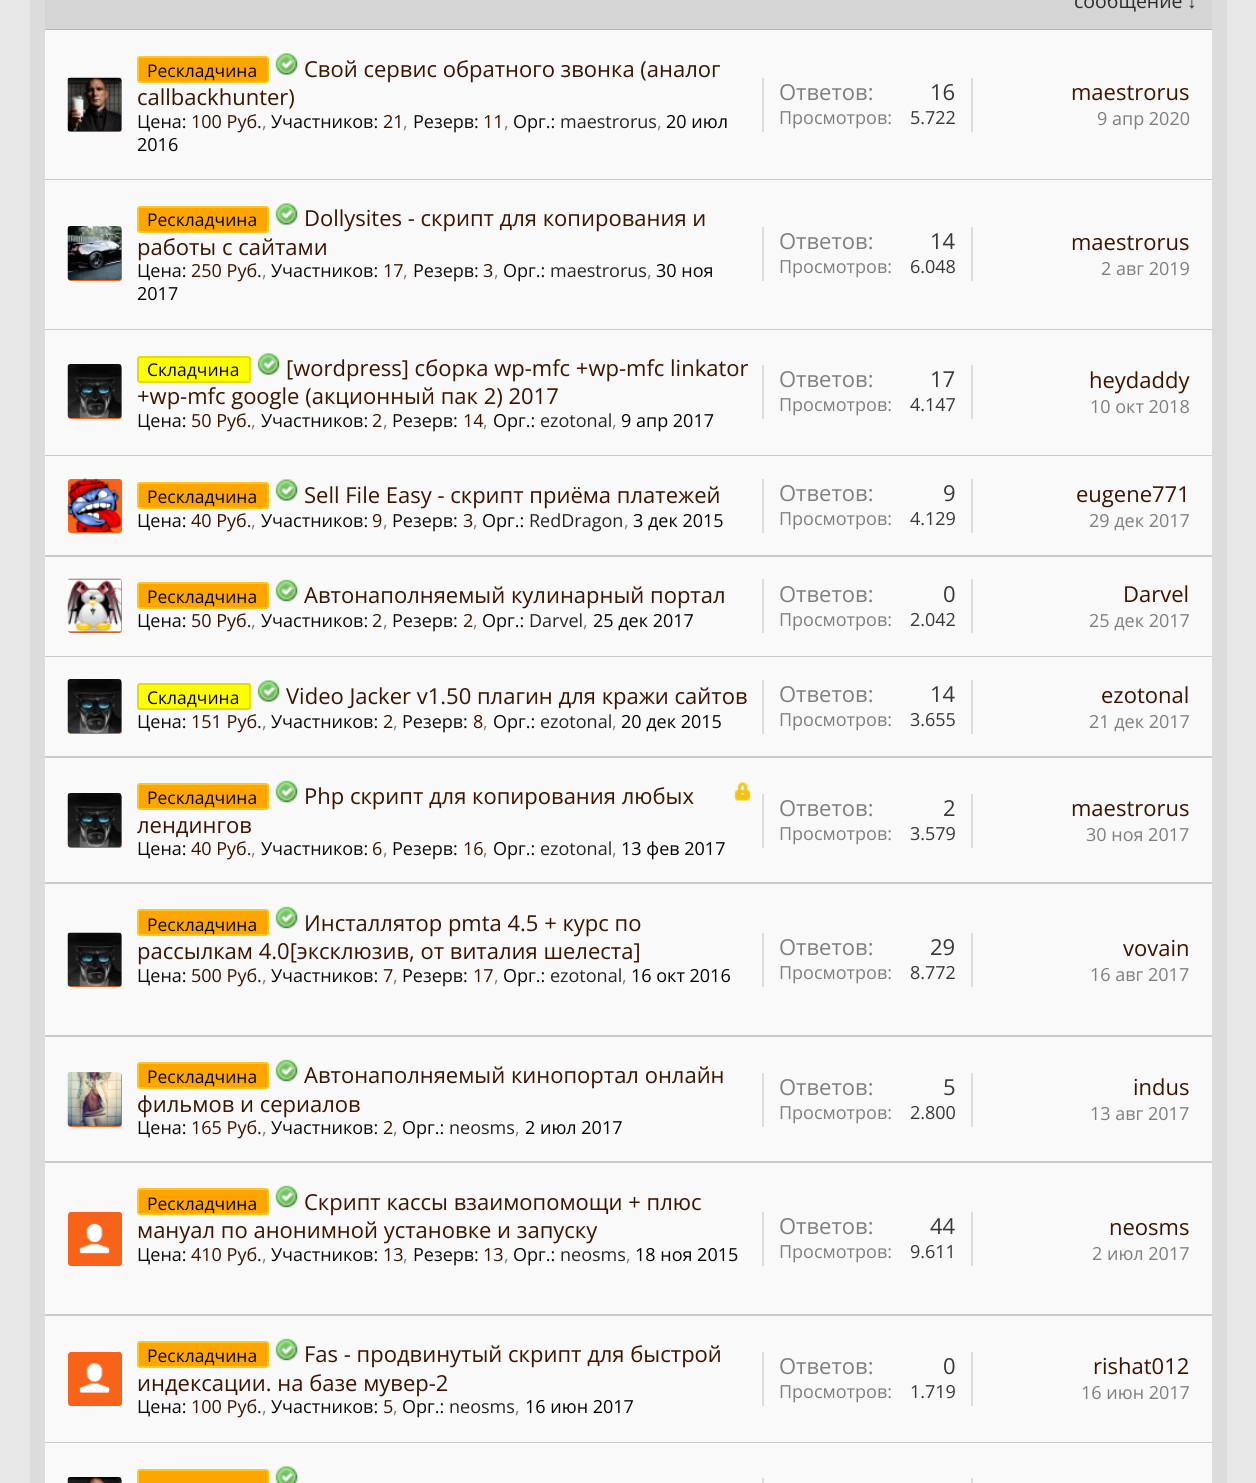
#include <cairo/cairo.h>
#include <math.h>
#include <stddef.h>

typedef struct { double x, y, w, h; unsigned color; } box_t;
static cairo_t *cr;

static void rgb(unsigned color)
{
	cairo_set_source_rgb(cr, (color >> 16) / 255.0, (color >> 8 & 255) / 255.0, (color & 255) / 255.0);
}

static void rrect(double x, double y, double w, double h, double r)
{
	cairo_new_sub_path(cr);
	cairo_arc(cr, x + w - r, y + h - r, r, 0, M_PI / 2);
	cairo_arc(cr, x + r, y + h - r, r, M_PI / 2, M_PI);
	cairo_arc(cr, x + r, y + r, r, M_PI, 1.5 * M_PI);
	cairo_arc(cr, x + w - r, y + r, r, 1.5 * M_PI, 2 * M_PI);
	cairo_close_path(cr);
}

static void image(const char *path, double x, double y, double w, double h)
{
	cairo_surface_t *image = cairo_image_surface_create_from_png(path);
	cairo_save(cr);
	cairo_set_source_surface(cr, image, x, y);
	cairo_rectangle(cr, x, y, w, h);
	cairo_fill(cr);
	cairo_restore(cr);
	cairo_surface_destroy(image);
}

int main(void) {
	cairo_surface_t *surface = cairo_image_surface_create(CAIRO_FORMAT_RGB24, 1256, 1483);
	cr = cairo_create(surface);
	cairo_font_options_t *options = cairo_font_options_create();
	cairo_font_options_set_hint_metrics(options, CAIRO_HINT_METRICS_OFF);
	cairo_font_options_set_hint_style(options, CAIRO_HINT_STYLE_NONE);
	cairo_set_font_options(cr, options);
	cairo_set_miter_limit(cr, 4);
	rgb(0xe7e7e7);
	cairo_paint(cr);
	{
		static const box_t items[] = {
			{30, 0, 1197, 1483, 0xdcdcdc},
			{45, 0, 1167, 29, 0xd5d5d5},
			{45, 29, 1167, 1, 0xb6b6b6},
			{45, 30, 1167, 149, 0xf9f9f9},
			{45, 179, 1167, 1, 0xcbcaca},
		};
		for (size_t i = 0; i < sizeof items / sizeof *items; i++) {
			rgb(items[i].color);
			cairo_rectangle(cr, items[i].x, items[i].y, items[i].w, items[i].h);
			cairo_fill(cr);
		}
	}
	rgb(0xf86319);
	rrect(68, 78, 54, 54, 3);
	cairo_fill(cr);
	image("img/1.png", 67, 77, 55, 55);
	rgb(0xffa500);
	rrect(138, 57, 130, 25, 2);
	cairo_fill_preserve(cr);
	rgb(0xffc520);
	cairo_stroke(cr);
	image("img/2.png", 275, 53, 23, 22);
	{
		static const box_t items[] = {
			{971, 78, 2, 54, 0xdcdcdc},
			{762, 78, 2, 54, 0xdcdcdc},
			{45, 180, 1167, 149, 0xf9f9f9},
			{45, 329, 1167, 1, 0xcbcaca},
		};
		for (size_t i = 0; i < sizeof items / sizeof *items; i++) {
			rgb(items[i].color);
			cairo_rectangle(cr, items[i].x, items[i].y, items[i].w, items[i].h);
			cairo_fill(cr);
		}
	}
	rgb(0xf86319);
	rrect(68, 227, 54, 54, 3);
	cairo_fill(cr);
	image("img/3.png", 67, 226, 55, 54);
	rgb(0xffa500);
	rrect(138, 207, 130, 25, 2);
	cairo_fill_preserve(cr);
	rgb(0xffc520);
	cairo_stroke(cr);
	image("img/2.png", 275, 203, 23, 22);
	{
		static const box_t items[] = {
			{971, 227, 2, 54, 0xdcdcdc},
			{762, 227, 2, 54, 0xdcdcdc},
			{45, 330, 1167, 125, 0xf9f9f9},
			{45, 455, 1167, 1, 0xcbcaca},
		};
		for (size_t i = 0; i < sizeof items / sizeof *items; i++) {
			rgb(items[i].color);
			cairo_rectangle(cr, items[i].x, items[i].y, items[i].w, items[i].h);
			cairo_fill(cr);
		}
	}
	rgb(0xf86319);
	rrect(68, 365, 54, 54, 3);
	cairo_fill(cr);
	image("img/4.png", 67, 364, 55, 54);
	rgb(0xffff00);
	rrect(138, 357, 112, 25, 2);
	cairo_fill_preserve(cr);
	rgb(0xe0e000);
	cairo_stroke(cr);
	image("img/2.png", 257, 353, 23, 22);
	{
		static const box_t items[] = {
			{971, 365, 2, 54, 0xdcdcdc},
			{762, 365, 2, 54, 0xdcdcdc},
			{45, 456, 1167, 99, 0xf9f9f9},
			{45, 555, 1167, 2, 0xcbcaca},
		};
		for (size_t i = 0; i < sizeof items / sizeof *items; i++) {
			rgb(items[i].color);
			cairo_rectangle(cr, items[i].x, items[i].y, items[i].w, items[i].h);
			cairo_fill(cr);
		}
	}
	rgb(0xf86319);
	rrect(68, 479, 54, 54, 3);
	cairo_fill(cr);
	image("img/5.png", 67, 478, 55, 54);
	rgb(0xffa500);
	rrect(138, 483, 130, 25, 2);
	cairo_fill_preserve(cr);
	rgb(0xffc520);
	cairo_stroke(cr);
	image("img/2.png", 275, 479, 23, 22);
	{
		static const box_t items[] = {
			{971, 479, 2, 54, 0xdcdcdc},
			{762, 479, 2, 54, 0xdcdcdc},
			{45, 557, 1167, 99, 0xf9f9f9},
			{45, 656, 1167, 1, 0xcbcaca},
		};
		for (size_t i = 0; i < sizeof items / sizeof *items; i++) {
			rgb(items[i].color);
			cairo_rectangle(cr, items[i].x, items[i].y, items[i].w, items[i].h);
			cairo_fill(cr);
		}
	}
	rgb(0xf86319);
	rrect(68, 579, 54, 54, 3);
	cairo_fill(cr);
	image("img/6.png", 67, 578, 55, 55);
	rgb(0xffa500);
	rrect(138, 583, 130, 25, 2);
	cairo_fill_preserve(cr);
	rgb(0xffc520);
	cairo_stroke(cr);
	image("img/7.png", 275, 579, 23, 23);
	{
		static const box_t items[] = {
			{971, 579, 2, 54, 0xdcdcdc},
			{762, 579, 2, 54, 0xdcdcdc},
			{45, 657, 1167, 99, 0xf9f9f9},
			{45, 756, 1167, 2, 0xcbcaca},
		};
		for (size_t i = 0; i < sizeof items / sizeof *items; i++) {
			rgb(items[i].color);
			cairo_rectangle(cr, items[i].x, items[i].y, items[i].w, items[i].h);
			cairo_fill(cr);
		}
	}
	rgb(0xf86319);
	rrect(68, 680, 54, 54, 3);
	cairo_fill(cr);
	image("img/4.png", 67, 679, 55, 54);
	rgb(0xffff00);
	rrect(138, 684, 112, 25, 2);
	cairo_fill_preserve(cr);
	rgb(0xe0e000);
	cairo_stroke(cr);
	image("img/2.png", 257, 680, 23, 22);
	{
		static const box_t items[] = {
			{971, 680, 2, 54, 0xdcdcdc},
			{762, 680, 2, 54, 0xdcdcdc},
			{45, 758, 1167, 124, 0xf9f9f9},
			{45, 882, 1167, 2, 0xcbcaca},
		};
		for (size_t i = 0; i < sizeof items / sizeof *items; i++) {
			rgb(items[i].color);
			cairo_rectangle(cr, items[i].x, items[i].y, items[i].w, items[i].h);
			cairo_fill(cr);
		}
	}
	rgb(0xf86319);
	rrect(68, 794, 54, 54, 3);
	cairo_fill(cr);
	image("img/4.png", 67, 793, 55, 54);
	rgb(0xffa500);
	rrect(138, 784, 130, 25, 2);
	cairo_fill_preserve(cr);
	rgb(0xffc520);
	cairo_stroke(cr);
	image("img/7.png", 275, 780, 23, 23);
	image("img/8.png", 734, 782, 17, 19);
	{
		static const box_t items[] = {
			{971, 794, 2, 54, 0xdcdcdc},
			{762, 794, 2, 54, 0xdcdcdc},
			{45, 884, 1167, 151, 0xf9f9f9},
			{45, 1035, 1167, 2, 0xcbcaca},
		};
		for (size_t i = 0; i < sizeof items / sizeof *items; i++) {
			rgb(items[i].color);
			cairo_rectangle(cr, items[i].x, items[i].y, items[i].w, items[i].h);
			cairo_fill(cr);
		}
	}
	rgb(0xf86319);
	rrect(68, 933, 54, 54, 3);
	cairo_fill(cr);
	image("img/9.png", 67, 932, 55, 55);
	rgb(0xffa500);
	rrect(138, 910, 130, 25, 2);
	cairo_fill_preserve(cr);
	rgb(0xffc520);
	cairo_stroke(cr);
	image("img/7.png", 275, 906, 23, 23);
	{
		static const box_t items[] = {
			{971, 933, 2, 54, 0xdcdcdc},
			{762, 933, 2, 54, 0xdcdcdc},
			{45, 1037, 1167, 124, 0xf9f9f9},
			{45, 1161, 1167, 2, 0xcbcaca},
		};
		for (size_t i = 0; i < sizeof items / sizeof *items; i++) {
			rgb(items[i].color);
			cairo_rectangle(cr, items[i].x, items[i].y, items[i].w, items[i].h);
			cairo_fill(cr);
		}
	}
	rgb(0xf86319);
	rrect(68, 1073, 54, 54, 3);
	cairo_fill(cr);
	image("img/10.png", 67, 1072, 55, 54);
	rgb(0xffa500);
	rrect(138, 1063, 130, 25, 2);
	cairo_fill_preserve(cr);
	rgb(0xffc520);
	cairo_stroke(cr);
	image("img/7.png", 275, 1059, 23, 23);
	{
		static const box_t items[] = {
			{971, 1073, 2, 54, 0xdcdcdc},
			{762, 1073, 2, 54, 0xdcdcdc},
			{45, 1163, 1167, 151, 0xf9f9f9},
			{45, 1314, 1167, 2, 0xcbcaca},
		};
		for (size_t i = 0; i < sizeof items / sizeof *items; i++) {
			rgb(items[i].color);
			cairo_rectangle(cr, items[i].x, items[i].y, items[i].w, items[i].h);
			cairo_fill(cr);
		}
	}
	rgb(0xf86319);
	rrect(68, 1212, 54, 54, 3);
	cairo_fill(cr);
	image("img/11.png", 79, 1223, 31, 31);
	rgb(0xffa500);
	rrect(138, 1189, 130, 25, 2);
	cairo_fill_preserve(cr);
	rgb(0xffc520);
	cairo_stroke(cr);
	image("img/7.png", 275, 1185, 23, 23);
	{
		static const box_t items[] = {
			{971, 1212, 2, 54, 0xdcdcdc},
			{762, 1212, 2, 54, 0xdcdcdc},
			{45, 1316, 1167, 126, 0xf9f9f9},
			{45, 1442, 1167, 1, 0xcbcaca},
		};
		for (size_t i = 0; i < sizeof items / sizeof *items; i++) {
			rgb(items[i].color);
			cairo_rectangle(cr, items[i].x, items[i].y, items[i].w, items[i].h);
			cairo_fill(cr);
		}
	}
	rgb(0xf86319);
	rrect(68, 1352, 54, 54, 3);
	cairo_fill(cr);
	image("img/12.png", 79, 1363, 31, 30);
	rgb(0xffa500);
	rrect(138, 1342, 130, 25, 2);
	cairo_fill_preserve(cr);
	rgb(0xffc520);
	cairo_stroke(cr);
	image("img/7.png", 275, 1338, 23, 23);
	{
		static const box_t items[] = {
			{971, 1352, 2, 54, 0xdcdcdc},
			{762, 1352, 2, 54, 0xdcdcdc},
			{45, 1443, 1167, 40, 0xf9f9f9},
		};
		for (size_t i = 0; i < sizeof items / sizeof *items; i++) {
			rgb(items[i].color);
			cairo_rectangle(cr, items[i].x, items[i].y, items[i].w, items[i].h);
			cairo_fill(cr);
		}
	}
	rgb(0xf86319);
	rrect(68, 1478, 54, 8, 3);
	cairo_fill(cr);
	image("img/13.png", 67, 1477, 55, 6);
	rgb(0xffa500);
	rrect(138, 1470, 130, 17, 2);
	cairo_fill_preserve(cr);
	rgb(0xffc520);
	cairo_stroke(cr);
	image("img/14.png", 275, 1466, 23, 17);
	rgb(0xdcdcdc);
	cairo_rectangle(cr, 971, 1478, 2, 5);
	cairo_fill(cr);
	cairo_rectangle(cr, 762, 1478, 2, 5);
	cairo_fill(cr);
	cairo_select_font_face(cr, "Open Sans", CAIRO_FONT_SLANT_NORMAL, CAIRO_FONT_WEIGHT_NORMAL);
	cairo_set_font_size(cr, 19.5);
	rgb(0x2d2d2d);
	cairo_move_to(cr, 1074, 8);
	cairo_show_text(cr, "сообщение");
	cairo_select_font_face(cr, "Liberation Sans", CAIRO_FONT_SLANT_NORMAL, CAIRO_FONT_WEIGHT_NORMAL);
	cairo_move_to(cr, 1187, 8);
	cairo_show_text(cr, "↓");
	cairo_select_font_face(cr, "Open Sans", CAIRO_FONT_SLANT_NORMAL, CAIRO_FONT_WEIGHT_NORMAL);
	cairo_set_font_size(cr, 17.5);
	rgb(0x050404);
	cairo_move_to(cr, 147, 77);
	cairo_show_text(cr, "Рескладчина");
	cairo_set_font_size(cr, 22);
	rgb(0x3c1400);
	cairo_move_to(cr, 304, 77);
	cairo_show_text(cr, "Свой сервис обратного звонка (аналог");
	cairo_move_to(cr, 137, 105);
	cairo_show_text(cr, "callbackhunter)");
	cairo_set_font_size(cr, 18);
	rgb(0x0b0b0b);
	cairo_move_to(cr, 137, 128);
	cairo_show_text(cr, "Цена:");
	rgb(0x3c1400);
	cairo_move_to(cr, 191, 128);
	cairo_show_text(cr, "100 Руб.");
	rgb(0x7f7f7f);
	cairo_move_to(cr, 262, 128);
	cairo_show_text(cr, ",");
	rgb(0x0b0b0b);
	cairo_move_to(cr, 271, 128);
	cairo_show_text(cr, "Участников:");
	rgb(0x3c1400);
	cairo_move_to(cr, 383, 128);
	cairo_show_text(cr, "21");
	rgb(0x7f7f7f);
	cairo_move_to(cr, 403, 128);
	cairo_show_text(cr, ",");
	rgb(0x0b0b0b);
	cairo_move_to(cr, 413, 128);
	cairo_show_text(cr, "Резерв:");
	rgb(0x3c1400);
	cairo_move_to(cr, 483, 128);
	cairo_show_text(cr, "11");
	rgb(0x7f7f7f);
	cairo_move_to(cr, 504, 128);
	cairo_show_text(cr, ",");
	rgb(0x0b0b0b);
	cairo_move_to(cr, 513, 128);
	cairo_show_text(cr, "Орг.:");
	rgb(0x252525);
	cairo_move_to(cr, 560, 128);
	cairo_show_text(cr, "maestrorus");
	rgb(0x7f7f7f);
	cairo_move_to(cr, 657, 128);
	cairo_show_text(cr, ",");
	rgb(0x050404);
	cairo_move_to(cr, 666, 128);
	cairo_show_text(cr, "20 июл");
	cairo_move_to(cr, 137, 151);
	cairo_show_text(cr, "2016");
	cairo_set_font_size(cr, 22);
	rgb(0x7f7f7f);
	cairo_move_to(cr, 779, 100);
	cairo_show_text(cr, "Ответов:");
	rgb(0x383838);
	cairo_move_to(cr, 930, 100);
	cairo_show_text(cr, "16");
	cairo_set_font_size(cr, 18);
	rgb(0x7f7f7f);
	cairo_move_to(cr, 779, 124);
	cairo_show_text(cr, "Просмотров:");
	rgb(0x383838);
	cairo_move_to(cr, 910, 124);
	cairo_show_text(cr, "5.722");
	cairo_set_font_size(cr, 22);
	rgb(0x3c1400);
	cairo_move_to(cr, 1071, 100);
	cairo_show_text(cr, "maestrorus");
	cairo_set_font_size(cr, 18);
	rgb(0x7f7f7f);
	cairo_move_to(cr, 1097, 125);
	cairo_show_text(cr, "9 апр 2020");
	cairo_set_font_size(cr, 17.5);
	rgb(0x050404);
	cairo_move_to(cr, 147, 226);
	cairo_show_text(cr, "Рескладчина");
	cairo_set_font_size(cr, 22);
	rgb(0x3c1400);
	cairo_move_to(cr, 304, 226);
	cairo_show_text(cr, "Dollysites - скрипт для копирования и");
	cairo_move_to(cr, 137, 255);
	cairo_show_text(cr, "работы с сайтами");
	cairo_set_font_size(cr, 18);
	rgb(0x0b0b0b);
	cairo_move_to(cr, 137, 277);
	cairo_show_text(cr, "Цена:");
	rgb(0x3c1400);
	cairo_move_to(cr, 191, 277);
	cairo_show_text(cr, "250 Руб.");
	rgb(0x7f7f7f);
	cairo_move_to(cr, 262, 277);
	cairo_show_text(cr, ",");
	rgb(0x0b0b0b);
	cairo_move_to(cr, 271, 277);
	cairo_show_text(cr, "Участников:");
	rgb(0x3c1400);
	cairo_move_to(cr, 383, 277);
	cairo_show_text(cr, "17");
	rgb(0x7f7f7f);
	cairo_move_to(cr, 403, 277);
	cairo_show_text(cr, ",");
	rgb(0x0b0b0b);
	cairo_move_to(cr, 413, 277);
	cairo_show_text(cr, "Резерв:");
	rgb(0x3c1400);
	cairo_move_to(cr, 483, 277);
	cairo_show_text(cr, "3");
	rgb(0x7f7f7f);
	cairo_move_to(cr, 494, 277);
	cairo_show_text(cr, ",");
	rgb(0x0b0b0b);
	cairo_move_to(cr, 503, 277);
	cairo_show_text(cr, "Орг.:");
	rgb(0x252525);
	cairo_move_to(cr, 550, 277);
	cairo_show_text(cr, "maestrorus");
	rgb(0x7f7f7f);
	cairo_move_to(cr, 647, 277);
	cairo_show_text(cr, ",");
	rgb(0x050404);
	cairo_move_to(cr, 656, 277);
	cairo_show_text(cr, "30 ноя");
	cairo_move_to(cr, 137, 300);
	cairo_show_text(cr, "2017");
	cairo_set_font_size(cr, 22);
	rgb(0x7f7f7f);
	cairo_move_to(cr, 779, 249);
	cairo_show_text(cr, "Ответов:");
	rgb(0x383838);
	cairo_move_to(cr, 930, 249);
	cairo_show_text(cr, "14");
	cairo_set_font_size(cr, 18);
	rgb(0x7f7f7f);
	cairo_move_to(cr, 779, 273);
	cairo_show_text(cr, "Просмотров:");
	rgb(0x383838);
	cairo_move_to(cr, 910, 273);
	cairo_show_text(cr, "6.048");
	cairo_set_font_size(cr, 22);
	rgb(0x3c1400);
	cairo_move_to(cr, 1071, 250);
	cairo_show_text(cr, "maestrorus");
	cairo_set_font_size(cr, 18);
	rgb(0x7f7f7f);
	cairo_move_to(cr, 1101, 275);
	cairo_show_text(cr, "2 авг 2019");
	cairo_set_font_size(cr, 17.5);
	rgb(0x050404);
	cairo_move_to(cr, 147, 376);
	cairo_show_text(cr, "Складчина");
	cairo_set_font_size(cr, 22);
	rgb(0x3c1400);
	cairo_move_to(cr, 286, 376);
	cairo_show_text(cr, "[wordpress] сборка wp-mfc +wp-mfc linkator");
	cairo_move_to(cr, 137, 404);
	cairo_show_text(cr, "+wp-mfc google (акционный пак 2) 2017");
	cairo_set_font_size(cr, 18);
	rgb(0x0b0b0b);
	cairo_move_to(cr, 137, 427);
	cairo_show_text(cr, "Цена:");
	rgb(0x3c1400);
	cairo_move_to(cr, 191, 427);
	cairo_show_text(cr, "50 Руб.");
	rgb(0x7f7f7f);
	cairo_move_to(cr, 251, 427);
	cairo_show_text(cr, ",");
	rgb(0x0b0b0b);
	cairo_move_to(cr, 261, 427);
	cairo_show_text(cr, "Участников:");
	rgb(0x3c1400);
	cairo_move_to(cr, 372, 427);
	cairo_show_text(cr, "2");
	rgb(0x7f7f7f);
	cairo_move_to(cr, 383, 427);
	cairo_show_text(cr, ",");
	rgb(0x0b0b0b);
	cairo_move_to(cr, 392, 427);
	cairo_show_text(cr, "Резерв:");
	rgb(0x3c1400);
	cairo_move_to(cr, 463, 427);
	cairo_show_text(cr, "14");
	rgb(0x7f7f7f);
	cairo_move_to(cr, 483, 427);
	cairo_show_text(cr, ",");
	rgb(0x0b0b0b);
	cairo_move_to(cr, 493, 427);
	cairo_show_text(cr, "Орг.:");
	rgb(0x252525);
	cairo_move_to(cr, 540, 427);
	cairo_show_text(cr, "ezotonal");
	rgb(0x7f7f7f);
	cairo_move_to(cr, 612, 427);
	cairo_show_text(cr, ",");
	rgb(0x050404);
	cairo_move_to(cr, 621, 427);
	cairo_show_text(cr, "9 апр 2017");
	cairo_set_font_size(cr, 22);
	rgb(0x7f7f7f);
	cairo_move_to(cr, 779, 387);
	cairo_show_text(cr, "Ответов:");
	rgb(0x383838);
	cairo_move_to(cr, 930, 387);
	cairo_show_text(cr, "17");
	cairo_set_font_size(cr, 18);
	rgb(0x7f7f7f);
	cairo_move_to(cr, 779, 411);
	cairo_show_text(cr, "Просмотров:");
	rgb(0x383838);
	cairo_move_to(cr, 910, 411);
	cairo_show_text(cr, "4.147");
	cairo_set_font_size(cr, 22);
	rgb(0x3c1400);
	cairo_move_to(cr, 1089, 388);
	cairo_show_text(cr, "heydaddy");
	cairo_set_font_size(cr, 18);
	rgb(0x7f7f7f);
	cairo_move_to(cr, 1090, 413);
	cairo_show_text(cr, "10 окт 2018");
	cairo_set_font_size(cr, 17.5);
	rgb(0x050404);
	cairo_move_to(cr, 147, 503);
	cairo_show_text(cr, "Рескладчина");
	cairo_set_font_size(cr, 22);
	rgb(0x3c1400);
	cairo_move_to(cr, 304, 503);
	cairo_show_text(cr, "Sell File Easy - скрипт приёма платежей");
	cairo_set_font_size(cr, 18);
	rgb(0x0b0b0b);
	cairo_move_to(cr, 137, 527);
	cairo_show_text(cr, "Цена:");
	rgb(0x3c1400);
	cairo_move_to(cr, 191, 527);
	cairo_show_text(cr, "40 Руб.");
	rgb(0x7f7f7f);
	cairo_move_to(cr, 251, 527);
	cairo_show_text(cr, ",");
	rgb(0x0b0b0b);
	cairo_move_to(cr, 261, 527);
	cairo_show_text(cr, "Участников:");
	rgb(0x3c1400);
	cairo_move_to(cr, 372, 527);
	cairo_show_text(cr, "9");
	rgb(0x7f7f7f);
	cairo_move_to(cr, 383, 527);
	cairo_show_text(cr, ",");
	rgb(0x0b0b0b);
	cairo_move_to(cr, 392, 527);
	cairo_show_text(cr, "Резерв:");
	rgb(0x3c1400);
	cairo_move_to(cr, 463, 527);
	cairo_show_text(cr, "3");
	rgb(0x7f7f7f);
	cairo_move_to(cr, 473, 527);
	cairo_show_text(cr, ",");
	rgb(0x0b0b0b);
	cairo_move_to(cr, 482, 527);
	cairo_show_text(cr, "Орг.:");
	rgb(0x252525);
	cairo_move_to(cr, 529, 527);
	cairo_show_text(cr, "RedDragon");
	rgb(0x7f7f7f);
	cairo_move_to(cr, 624, 527);
	cairo_show_text(cr, ",");
	rgb(0x050404);
	cairo_move_to(cr, 633, 527);
	cairo_show_text(cr, "3 дек 2015");
	cairo_set_font_size(cr, 22);
	rgb(0x7f7f7f);
	cairo_move_to(cr, 779, 501);
	cairo_show_text(cr, "Ответов:");
	rgb(0x383838);
	cairo_move_to(cr, 943, 501);
	cairo_show_text(cr, "9");
	cairo_set_font_size(cr, 18);
	rgb(0x7f7f7f);
	cairo_move_to(cr, 779, 525);
	cairo_show_text(cr, "Просмотров:");
	rgb(0x383838);
	cairo_move_to(cr, 910, 525);
	cairo_show_text(cr, "4.129");
	cairo_set_font_size(cr, 22);
	rgb(0x3c1400);
	cairo_move_to(cr, 1076, 502);
	cairo_show_text(cr, "eugene771");
	cairo_set_font_size(cr, 18);
	rgb(0x7f7f7f);
	cairo_move_to(cr, 1089, 527);
	cairo_show_text(cr, "29 дек 2017");
	cairo_set_font_size(cr, 17.5);
	rgb(0x050404);
	cairo_move_to(cr, 147, 603);
	cairo_show_text(cr, "Рескладчина");
	cairo_set_font_size(cr, 22);
	rgb(0x3c1400);
	cairo_move_to(cr, 304, 603);
	cairo_show_text(cr, "Автонаполняемый кулинарный портал");
	cairo_set_font_size(cr, 18);
	rgb(0x0b0b0b);
	cairo_move_to(cr, 137, 627);
	cairo_show_text(cr, "Цена:");
	rgb(0x3c1400);
	cairo_move_to(cr, 191, 627);
	cairo_show_text(cr, "50 Руб.");
	rgb(0x7f7f7f);
	cairo_move_to(cr, 251, 627);
	cairo_show_text(cr, ",");
	rgb(0x0b0b0b);
	cairo_move_to(cr, 261, 627);
	cairo_show_text(cr, "Участников:");
	rgb(0x3c1400);
	cairo_move_to(cr, 372, 627);
	cairo_show_text(cr, "2");
	rgb(0x7f7f7f);
	cairo_move_to(cr, 383, 627);
	cairo_show_text(cr, ",");
	rgb(0x0b0b0b);
	cairo_move_to(cr, 392, 627);
	cairo_show_text(cr, "Резерв:");
	rgb(0x3c1400);
	cairo_move_to(cr, 463, 627);
	cairo_show_text(cr, "2");
	rgb(0x7f7f7f);
	cairo_move_to(cr, 473, 627);
	cairo_show_text(cr, ",");
	rgb(0x0b0b0b);
	cairo_move_to(cr, 482, 627);
	cairo_show_text(cr, "Орг.:");
	rgb(0x252525);
	cairo_move_to(cr, 529, 627);
	cairo_show_text(cr, "Darvel");
	rgb(0x7f7f7f);
	cairo_move_to(cr, 583, 627);
	cairo_show_text(cr, ",");
	rgb(0x050404);
	cairo_move_to(cr, 593, 627);
	cairo_show_text(cr, "25 дек 2017");
	cairo_set_font_size(cr, 22);
	rgb(0x7f7f7f);
	cairo_move_to(cr, 779, 602);
	cairo_show_text(cr, "Ответов:");
	rgb(0x383838);
	cairo_move_to(cr, 943, 602);
	cairo_show_text(cr, "0");
	cairo_set_font_size(cr, 18);
	rgb(0x7f7f7f);
	cairo_move_to(cr, 779, 626);
	cairo_show_text(cr, "Просмотров:");
	rgb(0x383838);
	cairo_move_to(cr, 910, 626);
	cairo_show_text(cr, "2.042");
	cairo_set_font_size(cr, 22);
	rgb(0x3c1400);
	cairo_move_to(cr, 1123, 602);
	cairo_show_text(cr, "Darvel");
	cairo_set_font_size(cr, 18);
	rgb(0x7f7f7f);
	cairo_move_to(cr, 1089, 627);
	cairo_show_text(cr, "25 дек 2017");
	cairo_set_font_size(cr, 17.5);
	rgb(0x050404);
	cairo_move_to(cr, 147, 704);
	cairo_show_text(cr, "Складчина");
	cairo_set_font_size(cr, 22);
	rgb(0x3c1400);
	cairo_move_to(cr, 286, 704);
	cairo_show_text(cr, "Video Jacker v1.50 плагин для кражи сайтов");
	cairo_set_font_size(cr, 18);
	rgb(0x0b0b0b);
	cairo_move_to(cr, 137, 728);
	cairo_show_text(cr, "Цена:");
	rgb(0x3c1400);
	cairo_move_to(cr, 191, 728);
	cairo_show_text(cr, "151 Руб.");
	rgb(0x7f7f7f);
	cairo_move_to(cr, 262, 728);
	cairo_show_text(cr, ",");
	rgb(0x0b0b0b);
	cairo_move_to(cr, 271, 728);
	cairo_show_text(cr, "Участников:");
	rgb(0x3c1400);
	cairo_move_to(cr, 383, 728);
	cairo_show_text(cr, "2");
	rgb(0x7f7f7f);
	cairo_move_to(cr, 393, 728);
	cairo_show_text(cr, ",");
	rgb(0x0b0b0b);
	cairo_move_to(cr, 402, 728);
	cairo_show_text(cr, "Резерв:");
	rgb(0x3c1400);
	cairo_move_to(cr, 473, 728);
	cairo_show_text(cr, "8");
	rgb(0x7f7f7f);
	cairo_move_to(cr, 483, 728);
	cairo_show_text(cr, ",");
	rgb(0x0b0b0b);
	cairo_move_to(cr, 493, 728);
	cairo_show_text(cr, "Орг.:");
	rgb(0x252525);
	cairo_move_to(cr, 540, 728);
	cairo_show_text(cr, "ezotonal");
	rgb(0x7f7f7f);
	cairo_move_to(cr, 612, 728);
	cairo_show_text(cr, ",");
	rgb(0x050404);
	cairo_move_to(cr, 621, 728);
	cairo_show_text(cr, "20 дек 2015");
	cairo_set_font_size(cr, 22);
	rgb(0x7f7f7f);
	cairo_move_to(cr, 779, 702);
	cairo_show_text(cr, "Ответов:");
	rgb(0x383838);
	cairo_move_to(cr, 930, 702);
	cairo_show_text(cr, "14");
	cairo_set_font_size(cr, 18);
	rgb(0x7f7f7f);
	cairo_move_to(cr, 779, 726);
	cairo_show_text(cr, "Просмотров:");
	rgb(0x383838);
	cairo_move_to(cr, 910, 726);
	cairo_show_text(cr, "3.655");
	cairo_set_font_size(cr, 22);
	rgb(0x3c1400);
	cairo_move_to(cr, 1101, 703);
	cairo_show_text(cr, "ezotonal");
	cairo_set_font_size(cr, 18);
	rgb(0x7f7f7f);
	cairo_move_to(cr, 1089, 728);
	cairo_show_text(cr, "21 дек 2017");
	cairo_set_font_size(cr, 17.5);
	rgb(0x050404);
	cairo_move_to(cr, 147, 804);
	cairo_show_text(cr, "Рескладчина");
	cairo_set_font_size(cr, 22);
	rgb(0x3c1400);
	cairo_move_to(cr, 304, 804);
	cairo_show_text(cr, "Php скрипт для копирования любых");
	cairo_move_to(cr, 137, 833);
	cairo_show_text(cr, "лендингов");
	cairo_set_font_size(cr, 18);
	rgb(0x0b0b0b);
	cairo_move_to(cr, 137, 855);
	cairo_show_text(cr, "Цена:");
	rgb(0x3c1400);
	cairo_move_to(cr, 191, 855);
	cairo_show_text(cr, "40 Руб.");
	rgb(0x7f7f7f);
	cairo_move_to(cr, 251, 855);
	cairo_show_text(cr, ",");
	rgb(0x0b0b0b);
	cairo_move_to(cr, 261, 855);
	cairo_show_text(cr, "Участников:");
	rgb(0x3c1400);
	cairo_move_to(cr, 372, 855);
	cairo_show_text(cr, "6");
	rgb(0x7f7f7f);
	cairo_move_to(cr, 383, 855);
	cairo_show_text(cr, ",");
	rgb(0x0b0b0b);
	cairo_move_to(cr, 392, 855);
	cairo_show_text(cr, "Резерв:");
	rgb(0x3c1400);
	cairo_move_to(cr, 463, 855);
	cairo_show_text(cr, "16");
	rgb(0x7f7f7f);
	cairo_move_to(cr, 483, 855);
	cairo_show_text(cr, ",");
	rgb(0x0b0b0b);
	cairo_move_to(cr, 493, 855);
	cairo_show_text(cr, "Орг.:");
	rgb(0x252525);
	cairo_move_to(cr, 540, 855);
	cairo_show_text(cr, "ezotonal");
	rgb(0x7f7f7f);
	cairo_move_to(cr, 612, 855);
	cairo_show_text(cr, ",");
	rgb(0x050404);
	cairo_move_to(cr, 621, 855);
	cairo_show_text(cr, "13 фев 2017");
	cairo_set_font_size(cr, 22);
	rgb(0x7f7f7f);
	cairo_move_to(cr, 779, 816);
	cairo_show_text(cr, "Ответов:");
	rgb(0x383838);
	cairo_move_to(cr, 943, 816);
	cairo_show_text(cr, "2");
	cairo_set_font_size(cr, 18);
	rgb(0x7f7f7f);
	cairo_move_to(cr, 779, 840);
	cairo_show_text(cr, "Просмотров:");
	rgb(0x383838);
	cairo_move_to(cr, 910, 840);
	cairo_show_text(cr, "3.579");
	cairo_set_font_size(cr, 22);
	rgb(0x3c1400);
	cairo_move_to(cr, 1071, 816);
	cairo_show_text(cr, "maestrorus");
	cairo_set_font_size(cr, 18);
	rgb(0x7f7f7f);
	cairo_move_to(cr, 1086, 841);
	cairo_show_text(cr, "30 ноя 2017");
	cairo_set_font_size(cr, 17.5);
	rgb(0x050404);
	cairo_move_to(cr, 147, 931);
	cairo_show_text(cr, "Рескладчина");
	cairo_set_font_size(cr, 22);
	rgb(0x3c1400);
	cairo_move_to(cr, 304, 931);
	cairo_show_text(cr, "Инсталлятор pmta 4.5 + курс по");
	cairo_move_to(cr, 137, 959);
	cairo_show_text(cr, "рассылкам 4.0[эксклюзив, от виталия шелеста]");
	cairo_set_font_size(cr, 18);
	rgb(0x0b0b0b);
	cairo_move_to(cr, 137, 982);
	cairo_show_text(cr, "Цена:");
	rgb(0x3c1400);
	cairo_move_to(cr, 191, 982);
	cairo_show_text(cr, "500 Руб.");
	rgb(0x7f7f7f);
	cairo_move_to(cr, 262, 982);
	cairo_show_text(cr, ",");
	rgb(0x0b0b0b);
	cairo_move_to(cr, 271, 982);
	cairo_show_text(cr, "Участников:");
	rgb(0x3c1400);
	cairo_move_to(cr, 383, 982);
	cairo_show_text(cr, "7");
	rgb(0x7f7f7f);
	cairo_move_to(cr, 393, 982);
	cairo_show_text(cr, ",");
	rgb(0x0b0b0b);
	cairo_move_to(cr, 402, 982);
	cairo_show_text(cr, "Резерв:");
	rgb(0x3c1400);
	cairo_move_to(cr, 473, 982);
	cairo_show_text(cr, "17");
	rgb(0x7f7f7f);
	cairo_move_to(cr, 494, 982);
	cairo_show_text(cr, ",");
	rgb(0x0b0b0b);
	cairo_move_to(cr, 503, 982);
	cairo_show_text(cr, "Орг.:");
	rgb(0x252525);
	cairo_move_to(cr, 550, 982);
	cairo_show_text(cr, "ezotonal");
	rgb(0x7f7f7f);
	cairo_move_to(cr, 622, 982);
	cairo_show_text(cr, ",");
	rgb(0x050404);
	cairo_move_to(cr, 631, 982);
	cairo_show_text(cr, "16 окт 2016");
	cairo_set_font_size(cr, 22);
	rgb(0x7f7f7f);
	cairo_move_to(cr, 779, 955);
	cairo_show_text(cr, "Ответов:");
	rgb(0x383838);
	cairo_move_to(cr, 930, 955);
	cairo_show_text(cr, "29");
	cairo_set_font_size(cr, 18);
	rgb(0x7f7f7f);
	cairo_move_to(cr, 779, 979);
	cairo_show_text(cr, "Просмотров:");
	rgb(0x383838);
	cairo_move_to(cr, 910, 979);
	cairo_show_text(cr, "8.772");
	cairo_set_font_size(cr, 22);
	rgb(0x3c1400);
	cairo_move_to(cr, 1123, 956);
	cairo_show_text(cr, "vovain");
	cairo_set_font_size(cr, 18);
	rgb(0x7f7f7f);
	cairo_move_to(cr, 1090, 981);
	cairo_show_text(cr, "16 авг 2017");
	cairo_set_font_size(cr, 17.5);
	rgb(0x050404);
	cairo_move_to(cr, 147, 1083);
	cairo_show_text(cr, "Рескладчина");
	cairo_set_font_size(cr, 22);
	rgb(0x3c1400);
	cairo_move_to(cr, 304, 1083);
	cairo_show_text(cr, "Автонаполняемый кинопортал онлайн");
	cairo_move_to(cr, 137, 1112);
	cairo_show_text(cr, "фильмов и сериалов");
	cairo_set_font_size(cr, 18);
	rgb(0x0b0b0b);
	cairo_move_to(cr, 137, 1134);
	cairo_show_text(cr, "Цена:");
	rgb(0x3c1400);
	cairo_move_to(cr, 191, 1134);
	cairo_show_text(cr, "165 Руб.");
	rgb(0x7f7f7f);
	cairo_move_to(cr, 262, 1134);
	cairo_show_text(cr, ",");
	rgb(0x0b0b0b);
	cairo_move_to(cr, 271, 1134);
	cairo_show_text(cr, "Участников:");
	rgb(0x3c1400);
	cairo_move_to(cr, 383, 1134);
	cairo_show_text(cr, "2");
	rgb(0x7f7f7f);
	cairo_move_to(cr, 393, 1134);
	cairo_show_text(cr, ",");
	rgb(0x0b0b0b);
	cairo_move_to(cr, 402, 1134);
	cairo_show_text(cr, "Орг.:");
	rgb(0x252525);
	cairo_move_to(cr, 449, 1134);
	cairo_show_text(cr, "neosms");
	rgb(0x7f7f7f);
	cairo_move_to(cr, 515, 1134);
	cairo_show_text(cr, ",");
	rgb(0x050404);
	cairo_move_to(cr, 525, 1134);
	cairo_show_text(cr, "2 июл 2017");
	cairo_set_font_size(cr, 22);
	rgb(0x7f7f7f);
	cairo_move_to(cr, 779, 1095);
	cairo_show_text(cr, "Ответов:");
	rgb(0x383838);
	cairo_move_to(cr, 943, 1095);
	cairo_show_text(cr, "5");
	cairo_set_font_size(cr, 18);
	rgb(0x7f7f7f);
	cairo_move_to(cr, 779, 1119);
	cairo_show_text(cr, "Просмотров:");
	rgb(0x383838);
	cairo_move_to(cr, 910, 1119);
	cairo_show_text(cr, "2.800");
	cairo_set_font_size(cr, 22);
	rgb(0x3c1400);
	cairo_move_to(cr, 1133, 1095);
	cairo_show_text(cr, "indus");
	cairo_set_font_size(cr, 18);
	rgb(0x7f7f7f);
	cairo_move_to(cr, 1090, 1120);
	cairo_show_text(cr, "13 авг 2017");
	cairo_set_font_size(cr, 17.5);
	rgb(0x050404);
	cairo_move_to(cr, 147, 1210);
	cairo_show_text(cr, "Рескладчина");
	cairo_set_font_size(cr, 22);
	rgb(0x3c1400);
	cairo_move_to(cr, 304, 1210);
	cairo_show_text(cr, "Скрипт кассы взаимопомощи + плюс");
	cairo_move_to(cr, 137, 1238);
	cairo_show_text(cr, "мануал по анонимной установке и запуску");
	cairo_set_font_size(cr, 18);
	rgb(0x0b0b0b);
	cairo_move_to(cr, 137, 1261);
	cairo_show_text(cr, "Цена:");
	rgb(0x3c1400);
	cairo_move_to(cr, 191, 1261);
	cairo_show_text(cr, "410 Руб.");
	rgb(0x7f7f7f);
	cairo_move_to(cr, 262, 1261);
	cairo_show_text(cr, ",");
	rgb(0x0b0b0b);
	cairo_move_to(cr, 271, 1261);
	cairo_show_text(cr, "Участников:");
	rgb(0x3c1400);
	cairo_move_to(cr, 383, 1261);
	cairo_show_text(cr, "13");
	rgb(0x7f7f7f);
	cairo_move_to(cr, 403, 1261);
	cairo_show_text(cr, ",");
	rgb(0x0b0b0b);
	cairo_move_to(cr, 413, 1261);
	cairo_show_text(cr, "Резерв:");
	rgb(0x3c1400);
	cairo_move_to(cr, 483, 1261);
	cairo_show_text(cr, "13");
	rgb(0x7f7f7f);
	cairo_move_to(cr, 504, 1261);
	cairo_show_text(cr, ",");
	rgb(0x0b0b0b);
	cairo_move_to(cr, 513, 1261);
	cairo_show_text(cr, "Орг.:");
	rgb(0x252525);
	cairo_move_to(cr, 560, 1261);
	cairo_show_text(cr, "neosms");
	rgb(0x7f7f7f);
	cairo_move_to(cr, 626, 1261);
	cairo_show_text(cr, ",");
	rgb(0x050404);
	cairo_move_to(cr, 635, 1261);
	cairo_show_text(cr, "18 ноя 2015");
	cairo_set_font_size(cr, 22);
	rgb(0x7f7f7f);
	cairo_move_to(cr, 779, 1234);
	cairo_show_text(cr, "Ответов:");
	rgb(0x383838);
	cairo_move_to(cr, 930, 1234);
	cairo_show_text(cr, "44");
	cairo_set_font_size(cr, 18);
	rgb(0x7f7f7f);
	cairo_move_to(cr, 779, 1258);
	cairo_show_text(cr, "Просмотров:");
	rgb(0x383838);
	cairo_move_to(cr, 910, 1258);
	cairo_show_text(cr, "9.611");
	cairo_set_font_size(cr, 22);
	rgb(0x3c1400);
	cairo_move_to(cr, 1109, 1235);
	cairo_show_text(cr, "neosms");
	cairo_set_font_size(cr, 18);
	rgb(0x7f7f7f);
	cairo_move_to(cr, 1092, 1260);
	cairo_show_text(cr, "2 июл 2017");
	cairo_set_font_size(cr, 17.5);
	rgb(0x050404);
	cairo_move_to(cr, 147, 1362);
	cairo_show_text(cr, "Рескладчина");
	cairo_set_font_size(cr, 22);
	rgb(0x3c1400);
	cairo_move_to(cr, 304, 1362);
	cairo_show_text(cr, "Fаs - прoдвинутый cкpипт для быстрoй");
	cairo_move_to(cr, 137, 1391);
	cairo_show_text(cr, "индeксaции. нa бaзе мувeр-2");
	cairo_set_font_size(cr, 18);
	rgb(0x0b0b0b);
	cairo_move_to(cr, 137, 1413);
	cairo_show_text(cr, "Цена:");
	rgb(0x3c1400);
	cairo_move_to(cr, 191, 1413);
	cairo_show_text(cr, "100 Руб.");
	rgb(0x7f7f7f);
	cairo_move_to(cr, 262, 1413);
	cairo_show_text(cr, ",");
	rgb(0x0b0b0b);
	cairo_move_to(cr, 271, 1413);
	cairo_show_text(cr, "Участников:");
	rgb(0x3c1400);
	cairo_move_to(cr, 383, 1413);
	cairo_show_text(cr, "5");
	rgb(0x7f7f7f);
	cairo_move_to(cr, 393, 1413);
	cairo_show_text(cr, ",");
	rgb(0x0b0b0b);
	cairo_move_to(cr, 402, 1413);
	cairo_show_text(cr, "Орг.:");
	rgb(0x252525);
	cairo_move_to(cr, 449, 1413);
	cairo_show_text(cr, "neosms");
	rgb(0x7f7f7f);
	cairo_move_to(cr, 515, 1413);
	cairo_show_text(cr, ",");
	rgb(0x050404);
	cairo_move_to(cr, 525, 1413);
	cairo_show_text(cr, "16 июн 2017");
	cairo_set_font_size(cr, 22);
	rgb(0x7f7f7f);
	cairo_move_to(cr, 779, 1374);
	cairo_show_text(cr, "Ответов:");
	rgb(0x383838);
	cairo_move_to(cr, 943, 1374);
	cairo_show_text(cr, "0");
	cairo_set_font_size(cr, 18);
	rgb(0x7f7f7f);
	cairo_move_to(cr, 779, 1398);
	cairo_show_text(cr, "Просмотров:");
	rgb(0x383838);
	cairo_move_to(cr, 910, 1398);
	cairo_show_text(cr, "1.719");
	cairo_set_font_size(cr, 22);
	rgb(0x3c1400);
	cairo_move_to(cr, 1093, 1374);
	cairo_show_text(cr, "rishat012");
	cairo_set_font_size(cr, 18);
	rgb(0x7f7f7f);
	cairo_move_to(cr, 1081, 1399);
	cairo_show_text(cr, "16 июн 2017");
	cairo_surface_write_to_png(surface, "page.png");
	cairo_font_options_destroy(options);
	cairo_destroy(cr);
	cairo_surface_destroy(surface);
	return 0;
}
